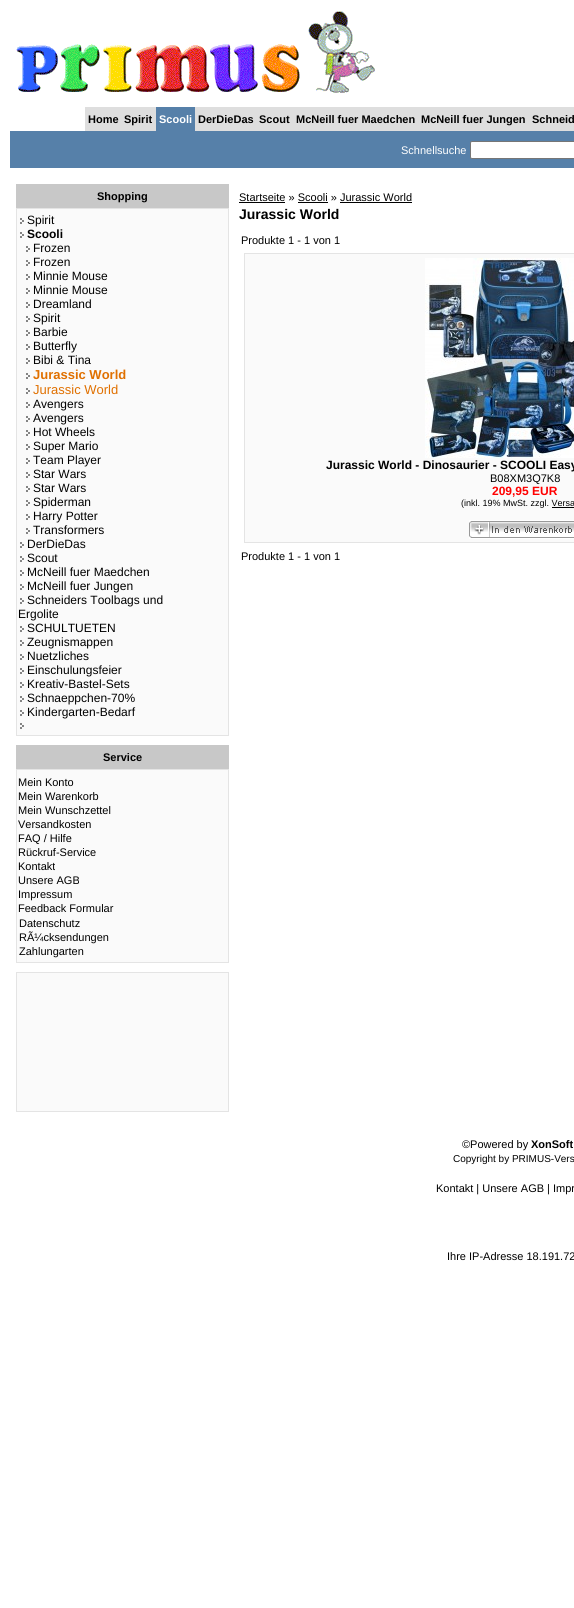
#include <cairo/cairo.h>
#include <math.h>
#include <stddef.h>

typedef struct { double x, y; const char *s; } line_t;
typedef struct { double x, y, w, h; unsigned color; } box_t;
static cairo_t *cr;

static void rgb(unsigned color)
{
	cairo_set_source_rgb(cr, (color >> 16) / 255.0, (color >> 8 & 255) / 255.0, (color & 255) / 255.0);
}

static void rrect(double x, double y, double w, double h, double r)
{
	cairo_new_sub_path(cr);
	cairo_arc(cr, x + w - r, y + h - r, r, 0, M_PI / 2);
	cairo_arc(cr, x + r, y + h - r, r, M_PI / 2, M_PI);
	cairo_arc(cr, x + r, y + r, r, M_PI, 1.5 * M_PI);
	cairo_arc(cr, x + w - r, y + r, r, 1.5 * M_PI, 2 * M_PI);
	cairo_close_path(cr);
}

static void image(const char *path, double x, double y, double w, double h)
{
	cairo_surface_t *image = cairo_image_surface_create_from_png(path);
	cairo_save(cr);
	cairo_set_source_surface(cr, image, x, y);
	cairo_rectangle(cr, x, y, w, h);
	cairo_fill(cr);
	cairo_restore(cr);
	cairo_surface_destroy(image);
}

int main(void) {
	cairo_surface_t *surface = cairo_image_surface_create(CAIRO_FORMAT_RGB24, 574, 1608);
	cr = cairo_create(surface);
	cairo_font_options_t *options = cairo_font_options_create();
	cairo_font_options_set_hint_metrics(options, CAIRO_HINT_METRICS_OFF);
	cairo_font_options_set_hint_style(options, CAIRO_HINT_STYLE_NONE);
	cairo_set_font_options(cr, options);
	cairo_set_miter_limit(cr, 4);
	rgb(0xffffff);
	cairo_paint(cr);
	image("img/1.png", 16, 11, 359, 82);
	{
		static const box_t items[] = {
			{85, 107, 71, 24, 0xdedede},
			{156, 107, 39, 24, 0x5680a9},
			{195, 107, 379, 24, 0xdedede},
			{10, 131, 564, 37, 0x5680a9},
		};
		for (size_t i = 0; i < sizeof items / sizeof *items; i++) {
			rgb(items[i].color);
			cairo_rectangle(cr, items[i].x, items[i].y, items[i].w, items[i].h);
			cairo_fill(cr);
		}
	}
	rgb(0xffffff);
	rrect(470.5, 141.5, 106, 17, 1.5);
	cairo_fill_preserve(cr);
	rgb(0x767676);
	cairo_set_line_width(cr, 1);
	cairo_stroke(cr);
	{
		static const box_t items[] = {
			{16, 184, 213, 24, 0xc8c8c8},
			{16, 208, 213, 528, 0xe4e4e4},
			{17, 209, 211, 526, 0xfafafa},
		};
		for (size_t i = 0; i < sizeof items / sizeof *items; i++) {
			rgb(items[i].color);
			cairo_rectangle(cr, items[i].x, items[i].y, items[i].w, items[i].h);
			cairo_fill(cr);
		}
	}
	image("img/2.png", 20, 218, 4, 6);
	image("img/2.png", 20, 232, 4, 6);
	image("img/2.png", 26, 246, 4, 6);
	image("img/2.png", 26, 260, 4, 6);
	image("img/2.png", 26, 274, 4, 6);
	image("img/2.png", 26, 288, 4, 6);
	image("img/2.png", 26, 302, 4, 6);
	image("img/2.png", 26, 316, 4, 6);
	image("img/2.png", 26, 330, 4, 6);
	image("img/2.png", 26, 344, 4, 6);
	image("img/2.png", 26, 358, 4, 6);
	image("img/2.png", 26, 373, 4, 6);
	image("img/2.png", 26, 388, 4, 6);
	image("img/2.png", 26, 402, 4, 6);
	image("img/2.png", 26, 416, 4, 6);
	image("img/2.png", 26, 430, 4, 6);
	image("img/2.png", 26, 444, 4, 6);
	image("img/2.png", 26, 458, 4, 6);
	image("img/2.png", 26, 472, 4, 6);
	image("img/2.png", 26, 486, 4, 6);
	image("img/2.png", 26, 500, 4, 6);
	image("img/2.png", 26, 514, 4, 6);
	image("img/2.png", 26, 528, 4, 6);
	image("img/2.png", 20, 542, 4, 6);
	image("img/2.png", 20, 556, 4, 6);
	image("img/2.png", 20, 570, 4, 6);
	image("img/2.png", 20, 584, 4, 6);
	image("img/2.png", 20, 598, 4, 6);
	image("img/2.png", 20, 626, 4, 6);
	image("img/2.png", 20, 640, 4, 6);
	image("img/2.png", 20, 654, 4, 6);
	image("img/2.png", 20, 668, 4, 6);
	image("img/2.png", 20, 682, 4, 6);
	image("img/2.png", 20, 696, 4, 6);
	image("img/2.png", 20, 710, 4, 6);
	image("img/2.png", 20, 723, 4, 6);
	{
		static const box_t items[] = {
			{16, 745, 213, 24, 0xc8c8c8},
			{16, 769, 213, 194, 0xe4e4e4},
			{17, 770, 211, 192, 0xfafafa},
			{16, 972, 213, 140, 0xe4e4e4},
			{17, 973, 211, 138, 0xfafafa},
			{239, 202, 46, 1, 0x000000},
			{298, 202, 30, 1, 0x000000},
			{340, 202, 72, 1, 0x000000},
			{244, 253, 330, 290, 0xe4e4e4},
			{245, 254, 329, 288, 0xfafafa},
		};
		for (size_t i = 0; i < sizeof items / sizeof *items; i++) {
			rgb(items[i].color);
			cairo_rectangle(cr, items[i].x, items[i].y, items[i].w, items[i].h);
			cairo_fill(cr);
		}
	}
	image("img/3.png", 425, 258, 149, 200);
	rgb(0x000000);
	cairo_rectangle(cr, 552, 507, 22, 1);
	cairo_fill(cr);
	image("img/4.png", 469, 520, 105, 19);
	cairo_select_font_face(cr, "Liberation Sans", CAIRO_FONT_SLANT_NORMAL, CAIRO_FONT_WEIGHT_BOLD);
	cairo_set_font_size(cr, 11);
	cairo_move_to(cr, 88, 123);
	cairo_show_text(cr, "Home");
	cairo_move_to(cr, 124, 123);
	cairo_show_text(cr, "Spirit");
	rgb(0xffffff);
	cairo_move_to(cr, 159, 123);
	cairo_show_text(cr, "Scooli");
	rgb(0x000000);
	{
		static const line_t items[] = {
			{198, 123, "DerDieDas"},
			{259, 123, "Scout"},
			{296, 123, "McNeill fuer Maedchen"},
			{421, 123, "McNeill fuer Jungen"},
			{532, 123, "Schneid"},
		};
		for (size_t i = 0; i < sizeof items / sizeof *items; i++) {
			cairo_move_to(cr, items[i].x, items[i].y);
			cairo_show_text(cr, items[i].s);
		}
	}
	cairo_select_font_face(cr, "Liberation Sans", CAIRO_FONT_SLANT_NORMAL, CAIRO_FONT_WEIGHT_NORMAL);
	rgb(0xffffff);
	cairo_move_to(cr, 401, 154);
	cairo_show_text(cr, "Schnellsuche");
	cairo_select_font_face(cr, "Liberation Sans", CAIRO_FONT_SLANT_NORMAL, CAIRO_FONT_WEIGHT_BOLD);
	rgb(0x000000);
	cairo_move_to(cr, 97, 200);
	cairo_show_text(cr, "Shopping");
	cairo_select_font_face(cr, "Liberation Sans", CAIRO_FONT_SLANT_NORMAL, CAIRO_FONT_WEIGHT_NORMAL);
	cairo_set_font_size(cr, 12);
	cairo_move_to(cr, 27, 224);
	cairo_show_text(cr, "Spirit");
	cairo_select_font_face(cr, "Liberation Sans", CAIRO_FONT_SLANT_NORMAL, CAIRO_FONT_WEIGHT_BOLD);
	cairo_move_to(cr, 27, 238);
	cairo_show_text(cr, "Scooli");
	cairo_select_font_face(cr, "Liberation Sans", CAIRO_FONT_SLANT_NORMAL, CAIRO_FONT_WEIGHT_NORMAL);
	{
		static const line_t items[] = {
			{33, 252, "Frozen"},
			{33, 266, "Frozen"},
			{33, 280, "Minnie Mouse"},
			{33, 294, "Minnie Mouse"},
			{33, 308, "Dreamland"},
			{33, 322, "Spirit"},
			{33, 336, "Barbie"},
			{33, 350, "Butterfly"},
			{33, 364, "Bibi & Tina"},
		};
		for (size_t i = 0; i < sizeof items / sizeof *items; i++) {
			cairo_move_to(cr, items[i].x, items[i].y);
			cairo_show_text(cr, items[i].s);
		}
	}
	cairo_select_font_face(cr, "Liberation Sans", CAIRO_FONT_SLANT_NORMAL, CAIRO_FONT_WEIGHT_BOLD);
	cairo_set_font_size(cr, 13);
	rgb(0xe07000);
	cairo_move_to(cr, 33, 379);
	cairo_show_text(cr, "Jurassic World");
	cairo_select_font_face(cr, "Liberation Sans", CAIRO_FONT_SLANT_NORMAL, CAIRO_FONT_WEIGHT_NORMAL);
	cairo_move_to(cr, 33, 394);
	cairo_show_text(cr, "Jurassic World");
	cairo_set_font_size(cr, 12);
	rgb(0x000000);
	{
		static const line_t items[] = {
			{33, 408, "Avengers"},
			{33, 422, "Avengers"},
			{33, 436, "Hot Wheels"},
			{33, 450, "Super Mario"},
			{33, 464, "Team Player"},
			{33, 478, "Star Wars"},
			{33, 492, "Star Wars"},
			{33, 506, "Spiderman"},
			{33, 520, "Harry Potter"},
			{33, 534, "Transformers"},
			{27, 548, "DerDieDas"},
			{27, 562, "Scout"},
			{27, 576, "McNeill fuer Maedchen"},
			{27, 590, "McNeill fuer Jungen"},
			{27, 604, "Schneiders Toolbags und"},
			{18, 618, "Ergolite"},
			{27, 632, "SCHULTUETEN"},
			{27, 646, "Zeugnismappen"},
			{27, 660, "Nuetzliches"},
			{27, 674, "Einschulungsfeier"},
			{27, 688, "Kreativ-Bastel-Sets"},
			{27, 702, "Schnaeppchen-70%"},
			{27, 716, "Kindergarten-Bedarf"},
		};
		for (size_t i = 0; i < sizeof items / sizeof *items; i++) {
			cairo_move_to(cr, items[i].x, items[i].y);
			cairo_show_text(cr, items[i].s);
		}
	}
	cairo_select_font_face(cr, "Liberation Sans", CAIRO_FONT_SLANT_NORMAL, CAIRO_FONT_WEIGHT_BOLD);
	cairo_set_font_size(cr, 11);
	cairo_move_to(cr, 103, 761);
	cairo_show_text(cr, "Service");
	cairo_select_font_face(cr, "Liberation Sans", CAIRO_FONT_SLANT_NORMAL, CAIRO_FONT_WEIGHT_NORMAL);
	{
		static const line_t items[] = {
			{18, 786, "Mein Konto"},
			{18, 800, "Mein Warenkorb"},
			{18, 814, "Mein Wunschzettel"},
			{18, 828, "Versandkosten"},
			{18, 842, "FAQ / Hilfe"},
			{18, 856, "Rückruf-Service"},
			{18, 870, "Kontakt"},
			{18, 884, "Unsere AGB"},
			{18, 898, "Impressum"},
			{18, 912, "Feedback Formular"},
			{19, 927, "Datenschutz"},
			{19, 941, "RÃ¼cksendungen"},
			{19, 955, "Zahlungarten"},
			{239, 201, "Startseite » Scooli » Jurassic World"},
		};
		for (size_t i = 0; i < sizeof items / sizeof *items; i++) {
			cairo_move_to(cr, items[i].x, items[i].y);
			cairo_show_text(cr, items[i].s);
		}
	}
	cairo_select_font_face(cr, "Liberation Sans", CAIRO_FONT_SLANT_NORMAL, CAIRO_FONT_WEIGHT_BOLD);
	cairo_set_font_size(cr, 14);
	cairo_move_to(cr, 239, 219);
	cairo_show_text(cr, "Jurassic World");
	cairo_select_font_face(cr, "Liberation Sans", CAIRO_FONT_SLANT_NORMAL, CAIRO_FONT_WEIGHT_NORMAL);
	cairo_set_font_size(cr, 11);
	cairo_move_to(cr, 241, 244);
	cairo_show_text(cr, "Produkte 1 - 1 von 1");
	cairo_select_font_face(cr, "Liberation Sans", CAIRO_FONT_SLANT_NORMAL, CAIRO_FONT_WEIGHT_BOLD);
	cairo_set_font_size(cr, 12);
	cairo_move_to(cr, 326, 469);
	cairo_show_text(cr, "Jurassic World - Dinosaurier - SCOOLI Easy");
	cairo_select_font_face(cr, "Liberation Sans", CAIRO_FONT_SLANT_NORMAL, CAIRO_FONT_WEIGHT_NORMAL);
	cairo_set_font_size(cr, 11);
	cairo_move_to(cr, 490, 482);
	cairo_show_text(cr, "B08XM3Q7K8");
	cairo_select_font_face(cr, "Liberation Sans", CAIRO_FONT_SLANT_NORMAL, CAIRO_FONT_WEIGHT_BOLD);
	cairo_set_font_size(cr, 12);
	rgb(0xff0000);
	cairo_move_to(cr, 492, 495);
	cairo_show_text(cr, "209,95 EUR");
	cairo_select_font_face(cr, "Liberation Sans", CAIRO_FONT_SLANT_NORMAL, CAIRO_FONT_WEIGHT_NORMAL);
	cairo_set_font_size(cr, 9);
	rgb(0x000000);
	cairo_move_to(cr, 461, 506);
	cairo_show_text(cr, "(inkl. 19% MwSt. zzgl. Versa");
	cairo_set_font_size(cr, 11);
	cairo_move_to(cr, 241, 560);
	cairo_show_text(cr, "Produkte 1 - 1 von 1");
	cairo_move_to(cr, 462, 1148);
	cairo_show_text(cr, "©Powered by");
	cairo_select_font_face(cr, "Liberation Sans", CAIRO_FONT_SLANT_NORMAL, CAIRO_FONT_WEIGHT_BOLD);
	cairo_move_to(cr, 531, 1148);
	cairo_show_text(cr, "XonSoft");
	cairo_select_font_face(cr, "Liberation Sans", CAIRO_FONT_SLANT_NORMAL, CAIRO_FONT_WEIGHT_NORMAL);
	cairo_set_font_size(cr, 10);
	cairo_move_to(cr, 453, 1162);
	cairo_show_text(cr, "Copyright by PRIMUS-Vers");
	cairo_set_font_size(cr, 11);
	cairo_move_to(cr, 436, 1192);
	cairo_show_text(cr, "Kontakt | Unsere AGB | Impr");
	cairo_move_to(cr, 447, 1260);
	cairo_show_text(cr, "Ihre IP-Adresse 18.191.72");
	cairo_surface_write_to_png(surface, "page.png");
	cairo_font_options_destroy(options);
	cairo_destroy(cr);
	cairo_surface_destroy(surface);
	return 0;
}
